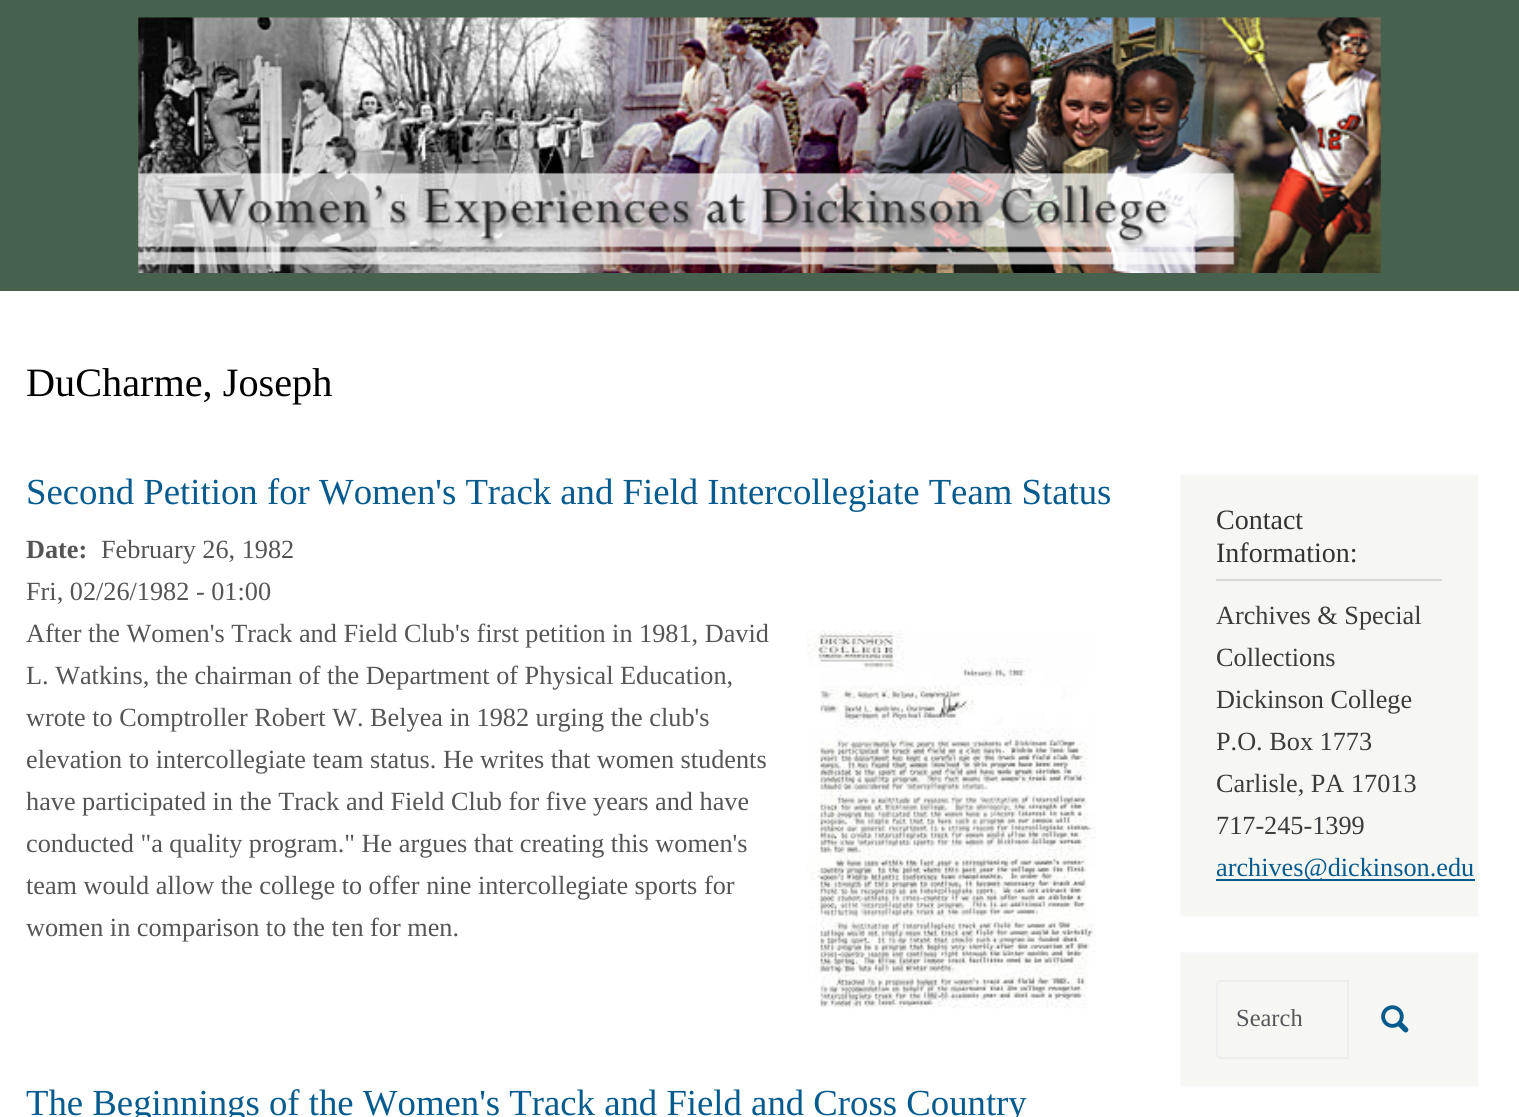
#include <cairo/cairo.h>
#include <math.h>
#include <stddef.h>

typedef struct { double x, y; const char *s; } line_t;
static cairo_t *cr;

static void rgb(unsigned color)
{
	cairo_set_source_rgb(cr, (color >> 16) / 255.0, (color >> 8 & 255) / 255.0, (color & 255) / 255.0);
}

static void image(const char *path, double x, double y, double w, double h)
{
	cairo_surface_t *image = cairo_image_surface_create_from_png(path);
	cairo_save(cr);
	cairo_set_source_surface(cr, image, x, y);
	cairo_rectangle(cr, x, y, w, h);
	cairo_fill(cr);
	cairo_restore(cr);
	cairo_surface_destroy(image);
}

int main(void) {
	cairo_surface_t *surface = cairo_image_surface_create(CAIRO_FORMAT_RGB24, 1519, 1117);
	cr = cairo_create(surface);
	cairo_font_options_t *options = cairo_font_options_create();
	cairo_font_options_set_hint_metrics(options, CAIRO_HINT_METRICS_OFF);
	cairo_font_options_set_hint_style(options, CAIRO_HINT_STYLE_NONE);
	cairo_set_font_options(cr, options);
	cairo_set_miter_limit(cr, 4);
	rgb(0xffffff);
	cairo_paint(cr);
	rgb(0x46614d);
	cairo_rectangle(cr, 0, 0, 1519, 291);
	cairo_fill(cr);
	image("img/1.png", 138, 17, 1243, 256);
	image("img/2.png", 807, 630, 289, 379);
	rgb(0xf6f6f2);
	cairo_rectangle(cr, 1181, 475, 297, 441);
	cairo_fill_preserve(cr);
	rgb(0xf9f9f9);
	cairo_stroke(cr);
	rgb(0xd6d6d6);
	cairo_rectangle(cr, 1216, 579, 226, 2);
	cairo_fill(cr);
	rgb(0x055a8e);
	cairo_rectangle(cr, 1216, 879, 259, 2);
	cairo_fill(cr);
	rgb(0xf6f6f2);
	cairo_rectangle(cr, 1181, 953, 297, 133);
	cairo_fill_preserve(cr);
	rgb(0xf9f9f9);
	cairo_stroke(cr);
	cairo_new_path(cr);
	cairo_move_to(cr, 1221, 981);
	cairo_line_to(cr, 1348, 981);
	cairo_line_to(cr, 1348, 1058);
	cairo_line_to(cr, 1221, 1058);
	cairo_curve_to(cr, 1219, 1058, 1217, 1056, 1217, 1054);
	cairo_line_to(cr, 1217, 985);
	cairo_curve_to(cr, 1217, 983, 1219, 981, 1221, 981);
	cairo_close_path(cr);
	rgb(0xededed);
	cairo_stroke(cr);
	image("img/3.png", 1381, 1005, 28, 28);
	cairo_select_font_face(cr, "Liberation Serif", CAIRO_FONT_SLANT_NORMAL, CAIRO_FONT_WEIGHT_NORMAL);
	cairo_set_font_size(cr, 40.25);
	rgb(0x000000);
	cairo_move_to(cr, 26, 396);
	cairo_show_text(cr, "DuCharme, Joseph");
	cairo_set_font_size(cr, 36.75);
	rgb(0x055a8e);
	cairo_move_to(cr, 26, 504);
	cairo_show_text(cr, "Second Petition for Women's Track and Field Intercollegiate Team Status");
	cairo_select_font_face(cr, "Liberation Serif", CAIRO_FONT_SLANT_NORMAL, CAIRO_FONT_WEIGHT_BOLD);
	cairo_set_font_size(cr, 26.25);
	rgb(0x555555);
	cairo_move_to(cr, 26, 558);
	cairo_show_text(cr, "Date:");
	cairo_select_font_face(cr, "Liberation Serif", CAIRO_FONT_SLANT_NORMAL, CAIRO_FONT_WEIGHT_NORMAL);
	{
		static const line_t items[] = {
			{101, 558, "February 26, 1982"},
			{26, 600, "Fri, 02/26/1982 - 01:00"},
			{26, 642, "After the Women's Track and Field Club's first petition in 1981, David"},
			{26, 684, "L. Watkins, the chairman of the Department of Physical Education,"},
			{26, 726, "wrote to Comptroller Robert W. Belyea in 1982 urging the club's"},
			{26, 768, "elevation to intercollegiate team status. He writes that women students"},
			{26, 810, "have participated in the Track and Field Club for five years and have"},
			{26, 852, "conducted \"a quality program.\" He argues that creating this women's"},
			{26, 894, "team would allow the college to offer nine intercollegiate sports for"},
			{26, 936, "women in comparison to the ten for men."},
		};
		for (size_t i = 0; i < sizeof items / sizeof *items; i++) {
			cairo_move_to(cr, items[i].x, items[i].y);
			cairo_show_text(cr, items[i].s);
		}
	}
	cairo_set_font_size(cr, 36.75);
	rgb(0x055a8e);
	cairo_move_to(cr, 26, 1115);
	cairo_show_text(cr, "The Beginnings of the Women's Track and Field and Cross Country");
	cairo_set_font_size(cr, 28);
	rgb(0x333333);
	cairo_move_to(cr, 1216, 529);
	cairo_show_text(cr, "Contact");
	cairo_move_to(cr, 1216, 562);
	cairo_show_text(cr, "Information:");
	cairo_set_font_size(cr, 26.25);
	rgb(0x3b3b3b);
	{
		static const line_t items[] = {
			{1216, 624, "Archives & Special"},
			{1216, 666, "Collections"},
			{1216, 708, "Dickinson College"},
			{1216, 750, "P.O. Box 1773"},
			{1216, 792, "Carlisle, PA 17013"},
			{1216, 834, "717-245-1399"},
		};
		for (size_t i = 0; i < sizeof items / sizeof *items; i++) {
			cairo_move_to(cr, items[i].x, items[i].y);
			cairo_show_text(cr, items[i].s);
		}
	}
	rgb(0x055a8e);
	cairo_move_to(cr, 1216, 876);
	cairo_show_text(cr, "archives@dickinson.edu");
	cairo_set_font_size(cr, 24.5);
	rgb(0x56595b);
	cairo_move_to(cr, 1236, 1026);
	cairo_show_text(cr, "Search");
	cairo_surface_write_to_png(surface, "page.png");
	cairo_font_options_destroy(options);
	cairo_destroy(cr);
	cairo_surface_destroy(surface);
	return 0;
}
